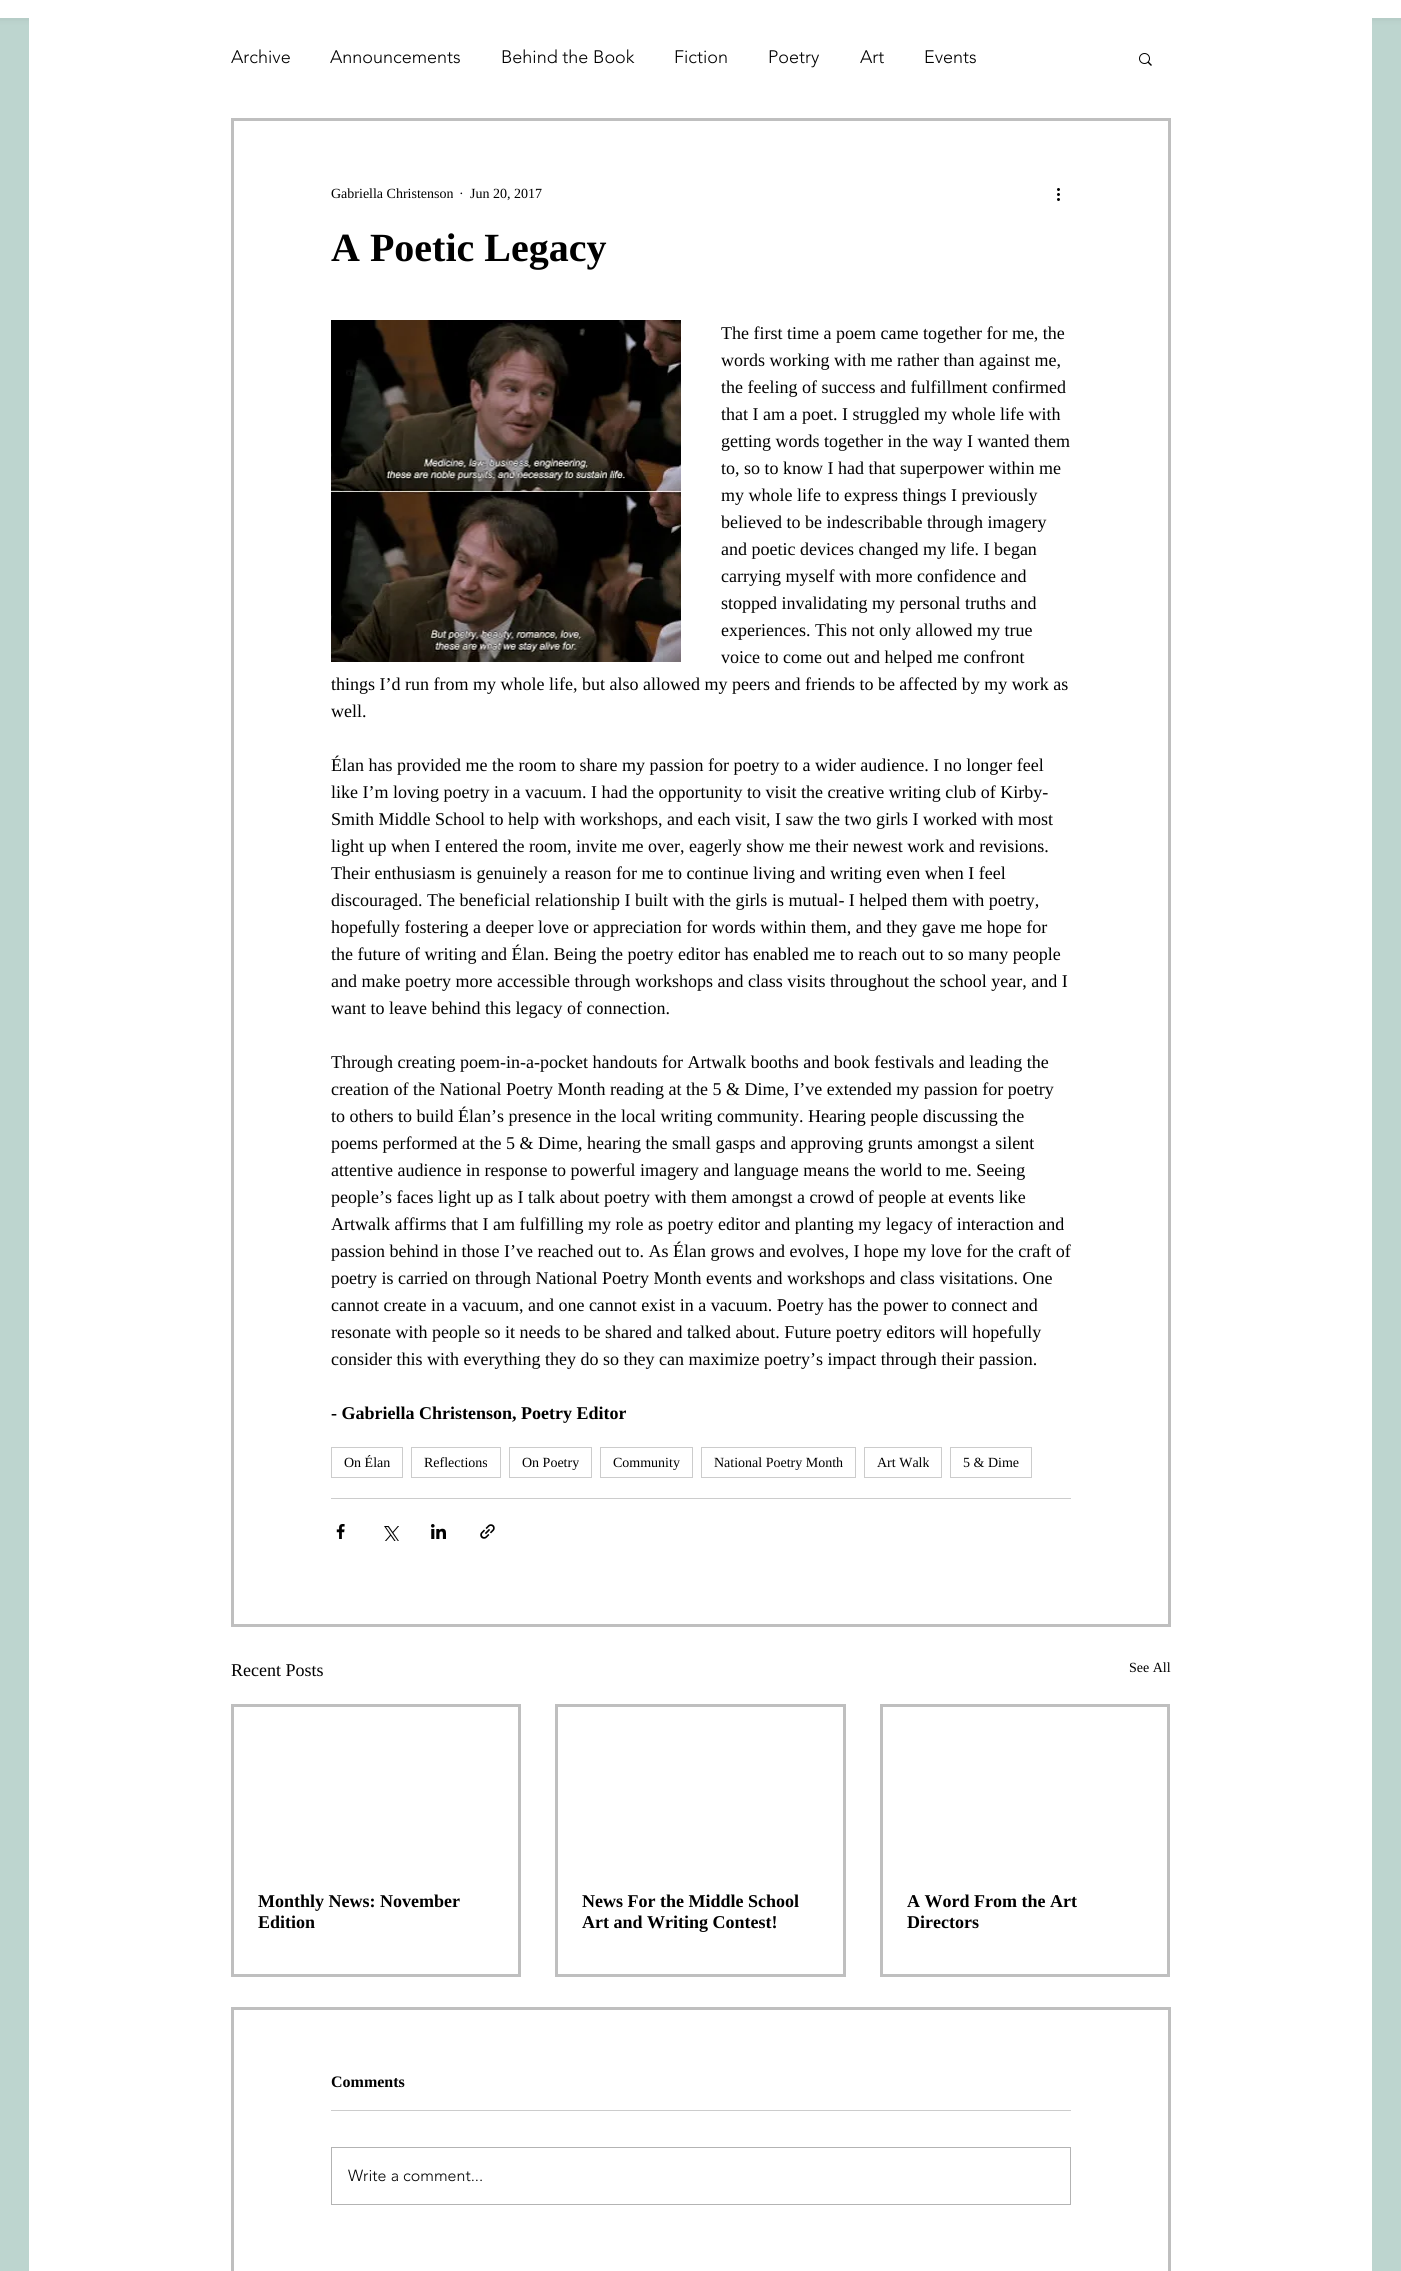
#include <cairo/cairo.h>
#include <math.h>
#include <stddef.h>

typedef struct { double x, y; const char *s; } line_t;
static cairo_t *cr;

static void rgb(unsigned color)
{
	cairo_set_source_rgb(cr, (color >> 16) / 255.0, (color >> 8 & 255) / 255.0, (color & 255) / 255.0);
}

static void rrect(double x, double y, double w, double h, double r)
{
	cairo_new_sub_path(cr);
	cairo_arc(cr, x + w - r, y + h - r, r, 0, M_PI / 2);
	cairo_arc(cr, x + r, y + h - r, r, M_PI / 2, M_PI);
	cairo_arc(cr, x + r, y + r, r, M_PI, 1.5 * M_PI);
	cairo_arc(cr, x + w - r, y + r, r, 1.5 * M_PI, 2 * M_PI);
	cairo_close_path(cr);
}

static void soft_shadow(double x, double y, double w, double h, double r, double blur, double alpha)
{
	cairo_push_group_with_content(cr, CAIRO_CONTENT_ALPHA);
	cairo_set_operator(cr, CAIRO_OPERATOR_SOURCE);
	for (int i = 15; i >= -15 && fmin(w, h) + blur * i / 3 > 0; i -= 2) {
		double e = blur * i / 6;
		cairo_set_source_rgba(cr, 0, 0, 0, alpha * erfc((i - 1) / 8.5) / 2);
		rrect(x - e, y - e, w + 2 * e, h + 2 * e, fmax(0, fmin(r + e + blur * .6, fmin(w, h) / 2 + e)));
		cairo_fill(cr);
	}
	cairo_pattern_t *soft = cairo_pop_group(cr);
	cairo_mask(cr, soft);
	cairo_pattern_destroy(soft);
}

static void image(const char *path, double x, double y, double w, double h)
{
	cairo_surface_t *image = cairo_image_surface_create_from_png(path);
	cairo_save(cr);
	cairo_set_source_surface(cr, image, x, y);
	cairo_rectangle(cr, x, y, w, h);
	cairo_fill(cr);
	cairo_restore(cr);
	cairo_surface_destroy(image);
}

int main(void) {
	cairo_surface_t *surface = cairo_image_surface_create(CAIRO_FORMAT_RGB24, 1401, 2271);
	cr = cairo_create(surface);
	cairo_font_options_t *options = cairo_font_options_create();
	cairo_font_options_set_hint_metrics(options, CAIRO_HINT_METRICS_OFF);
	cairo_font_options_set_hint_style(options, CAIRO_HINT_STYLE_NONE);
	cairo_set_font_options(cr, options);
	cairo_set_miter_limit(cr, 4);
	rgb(0xbdd5cf);
	cairo_paint(cr);
	rgb(0x000000);
	soft_shadow(-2, -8, 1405, 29, 0, 2.5, 0.05);
	rgb(0xffffff);
	cairo_rectangle(cr, 0, 0, 1401, 18);
	cairo_fill(cr);
	cairo_rectangle(cr, 29, 18, 1343, 2253);
	cairo_fill(cr);
	image("img/1.png", 1139, 53, 13, 13);
	cairo_rectangle(cr, 232.5, 119.5, 937, 1506);
	rgb(0xbfbfbf);
	cairo_set_line_width(cr, 3);
	cairo_stroke(cr);
	image("img/2.png", 1057, 188, 3, 13);
	image("img/3.png", 331, 320, 350, 342);
	cairo_rectangle(cr, 331.5, 1447.5, 71, 30);
	rgb(0xcccccc);
	cairo_set_line_width(cr, 1);
	cairo_stroke(cr);
	cairo_rectangle(cr, 411.5, 1447.5, 89, 30);
	cairo_stroke(cr);
	cairo_rectangle(cr, 509.5, 1447.5, 82, 30);
	cairo_stroke(cr);
	cairo_rectangle(cr, 600.5, 1447.5, 92, 30);
	cairo_stroke(cr);
	cairo_rectangle(cr, 701.5, 1447.5, 154, 30);
	cairo_stroke(cr);
	cairo_rectangle(cr, 864.5, 1447.5, 77, 30);
	cairo_stroke(cr);
	cairo_rectangle(cr, 950.5, 1447.5, 81, 30);
	cairo_stroke(cr);
	cairo_rectangle(cr, 331, 1498, 740, 1);
	cairo_fill(cr);
	image("img/4.png", 336, 1524, 9, 15);
	image("img/5.png", 384, 1526, 15, 15);
	image("img/6.png", 431, 1524, 15, 15);
	image("img/7.png", 480, 1524, 15, 15);
	cairo_rectangle(cr, 232.5, 1705.5, 287, 270);
	rgb(0xbfbfbf);
	cairo_set_line_width(cr, 3);
	cairo_stroke(cr);
	cairo_rectangle(cr, 556.5, 1705.5, 288, 270);
	cairo_stroke(cr);
	cairo_rectangle(cr, 881.5, 1705.5, 287, 270);
	cairo_stroke(cr);
	cairo_rectangle(cr, 232.5, 2008.5, 937, 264);
	cairo_stroke(cr);
	rgb(0xcccccc);
	cairo_rectangle(cr, 331, 2110, 740, 1);
	cairo_fill(cr);
	cairo_rectangle(cr, 331.5, 2147.5, 739, 57);
	rgb(0xb3b3b3);
	cairo_set_line_width(cr, 1);
	cairo_stroke(cr);
	cairo_select_font_face(cr, "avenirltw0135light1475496 Light", CAIRO_FONT_SLANT_NORMAL, CAIRO_FONT_WEIGHT_NORMAL);
	cairo_set_font_size(cr, 18);
	rgb(0x000000);
	{
		static const line_t items[] = {
			{231, 63, "Archive"},
			{330, 63, "Announcements"},
			{501, 63, "Behind the Book"},
			{674, 63, "Fiction"},
			{768, 63, "Poetry"},
			{860, 63, "Art"},
			{924, 63, "Events"},
		};
		for (size_t i = 0; i < sizeof items / sizeof *items; i++) {
			cairo_move_to(cr, items[i].x, items[i].y);
			cairo_show_text(cr, items[i].s);
		}
	}
	cairo_select_font_face(cr, "Liberation Serif", CAIRO_FONT_SLANT_NORMAL, CAIRO_FONT_WEIGHT_NORMAL);
	cairo_set_font_size(cr, 14);
	{
		static const line_t items[] = {
			{331, 198, "Gabriella Christenson"},
			{459, 198, "·"},
			{470, 198, "Jun 20, 2017"},
		};
		for (size_t i = 0; i < sizeof items / sizeof *items; i++) {
			cairo_move_to(cr, items[i].x, items[i].y);
			cairo_show_text(cr, items[i].s);
		}
	}
	cairo_select_font_face(cr, "Liberation Serif", CAIRO_FONT_SLANT_NORMAL, CAIRO_FONT_WEIGHT_BOLD);
	cairo_set_font_size(cr, 40);
	cairo_move_to(cr, 331, 261);
	cairo_show_text(cr, "A Poetic Legacy");
	cairo_select_font_face(cr, "Liberation Serif", CAIRO_FONT_SLANT_NORMAL, CAIRO_FONT_WEIGHT_NORMAL);
	cairo_set_font_size(cr, 18);
	{
		static const line_t items[] = {
			{721, 339, "The first time a poem came together for me, the"},
			{721, 366, "words working with me rather than against me,"},
			{721, 393, "the feeling of success and fulfillment confirmed"},
			{721, 420, "that I am a poet. I struggled my whole life with"},
			{721, 447, "getting words together in the way I wanted them"},
			{721, 474, "to, so to know I had that superpower within me"},
			{721, 501, "my whole life to express things I previously"},
			{721, 528, "believed to be indescribable through imagery"},
			{721, 555, "and poetic devices changed my life. I began"},
			{721, 582, "carrying myself with more confidence and"},
			{721, 609, "stopped invalidating my personal truths and"},
			{721, 636, "experiences. This not only allowed my true"},
			{721, 663, "voice to come out and helped me confront"},
			{331, 690, "things I’d run from my whole life, but also allowed my peers and friends to be affected by my work as"},
			{331, 717, "well."},
			{331, 771, "Élan has provided me the room to share my passion for poetry to a wider audience. I no longer feel"},
			{331, 798, "like I’m loving poetry in a vacuum. I had the opportunity to visit the creative writing club of Kirby-"},
			{331, 825, "Smith Middle School to help with workshops, and each visit, I saw the two girls I worked with most"},
			{331, 852, "light up when I entered the room, invite me over, eagerly show me their newest work and revisions."},
			{331, 879, "Their enthusiasm is genuinely a reason for me to continue living and writing even when I feel"},
			{331, 906, "discouraged. The beneficial relationship I built with the girls is mutual- I helped them with poetry,"},
			{331, 933, "hopefully fostering a deeper love or appreciation for words within them, and they gave me hope for"},
			{331, 960, "the future of writing and Élan. Being the poetry editor has enabled me to reach out to so many people"},
			{331, 987, "and make poetry more accessible through workshops and class visits throughout the school year, and I"},
			{331, 1014, "want to leave behind this legacy of connection."},
			{331, 1068, "Through creating poem-in-a-pocket handouts for Artwalk booths and book festivals and leading the"},
			{331, 1095, "creation of the National Poetry Month reading at the 5 & Dime, I’ve extended my passion for poetry"},
			{331, 1122, "to others to build Élan’s presence in the local writing community. Hearing people discussing the"},
			{331, 1149, "poems performed at the 5 & Dime, hearing the small gasps and approving grunts amongst a silent"},
			{331, 1176, "attentive audience in response to powerful imagery and language means the world to me. Seeing"},
			{331, 1203, "people’s faces light up as I talk about poetry with them amongst a crowd of people at events like"},
			{331, 1230, "Artwalk affirms that I am fulfilling my role as poetry editor and planting my legacy of interaction and"},
			{331, 1257, "passion behind in those I’ve reached out to. As Élan grows and evolves, I hope my love for the craft of"},
			{331, 1284, "poetry is carried on through National Poetry Month events and workshops and class visitations. One"},
			{331, 1311, "cannot create in a vacuum, and one cannot exist in a vacuum. Poetry has the power to connect and"},
			{331, 1338, "resonate with people so it needs to be shared and talked about. Future poetry editors will hopefully"},
			{331, 1365, "consider this with everything they do so they can maximize poetry’s impact through their passion."},
		};
		for (size_t i = 0; i < sizeof items / sizeof *items; i++) {
			cairo_move_to(cr, items[i].x, items[i].y);
			cairo_show_text(cr, items[i].s);
		}
	}
	cairo_select_font_face(cr, "Liberation Serif", CAIRO_FONT_SLANT_NORMAL, CAIRO_FONT_WEIGHT_BOLD);
	cairo_move_to(cr, 331, 1419);
	cairo_show_text(cr, "- Gabriella Christenson, Poetry Editor");
	cairo_select_font_face(cr, "Liberation Serif", CAIRO_FONT_SLANT_NORMAL, CAIRO_FONT_WEIGHT_NORMAL);
	cairo_set_font_size(cr, 14);
	{
		static const line_t items[] = {
			{344, 1467, "On Élan"},
			{424, 1467, "Reflections"},
			{522, 1467, "On Poetry"},
			{613, 1467, "Community"},
			{714, 1467, "National Poetry Month"},
			{877, 1467, "Art Walk"},
			{963, 1467, "5 & Dime"},
		};
		for (size_t i = 0; i < sizeof items / sizeof *items; i++) {
			cairo_move_to(cr, items[i].x, items[i].y);
			cairo_show_text(cr, items[i].s);
		}
	}
	cairo_set_font_size(cr, 18);
	cairo_move_to(cr, 231, 1676);
	cairo_show_text(cr, "Recent Posts");
	cairo_set_font_size(cr, 14);
	cairo_move_to(cr, 1129, 1672);
	cairo_show_text(cr, "See All");
	cairo_select_font_face(cr, "Liberation Serif", CAIRO_FONT_SLANT_NORMAL, CAIRO_FONT_WEIGHT_BOLD);
	cairo_set_font_size(cr, 18);
	{
		static const line_t items[] = {
			{258, 1907, "Monthly News: November"},
			{258, 1928, "Edition"},
			{582, 1907, "News For the Middle School"},
			{582, 1928, "Art and Writing Contest!"},
			{907, 1907, "A Word From the Art"},
			{907, 1928, "Directors"},
		};
		for (size_t i = 0; i < sizeof items / sizeof *items; i++) {
			cairo_move_to(cr, items[i].x, items[i].y);
			cairo_show_text(cr, items[i].s);
		}
	}
	cairo_set_font_size(cr, 16);
	cairo_move_to(cr, 331, 2087);
	cairo_show_text(cr, "Comments");
	cairo_select_font_face(cr, "avenirltw0135light1475496 Light", CAIRO_FONT_SLANT_NORMAL, CAIRO_FONT_WEIGHT_NORMAL);
	cairo_move_to(cr, 348, 2181);
	cairo_show_text(cr, "Write a comment...");
	cairo_surface_write_to_png(surface, "page.png");
	cairo_font_options_destroy(options);
	cairo_destroy(cr);
	cairo_surface_destroy(surface);
	return 0;
}
